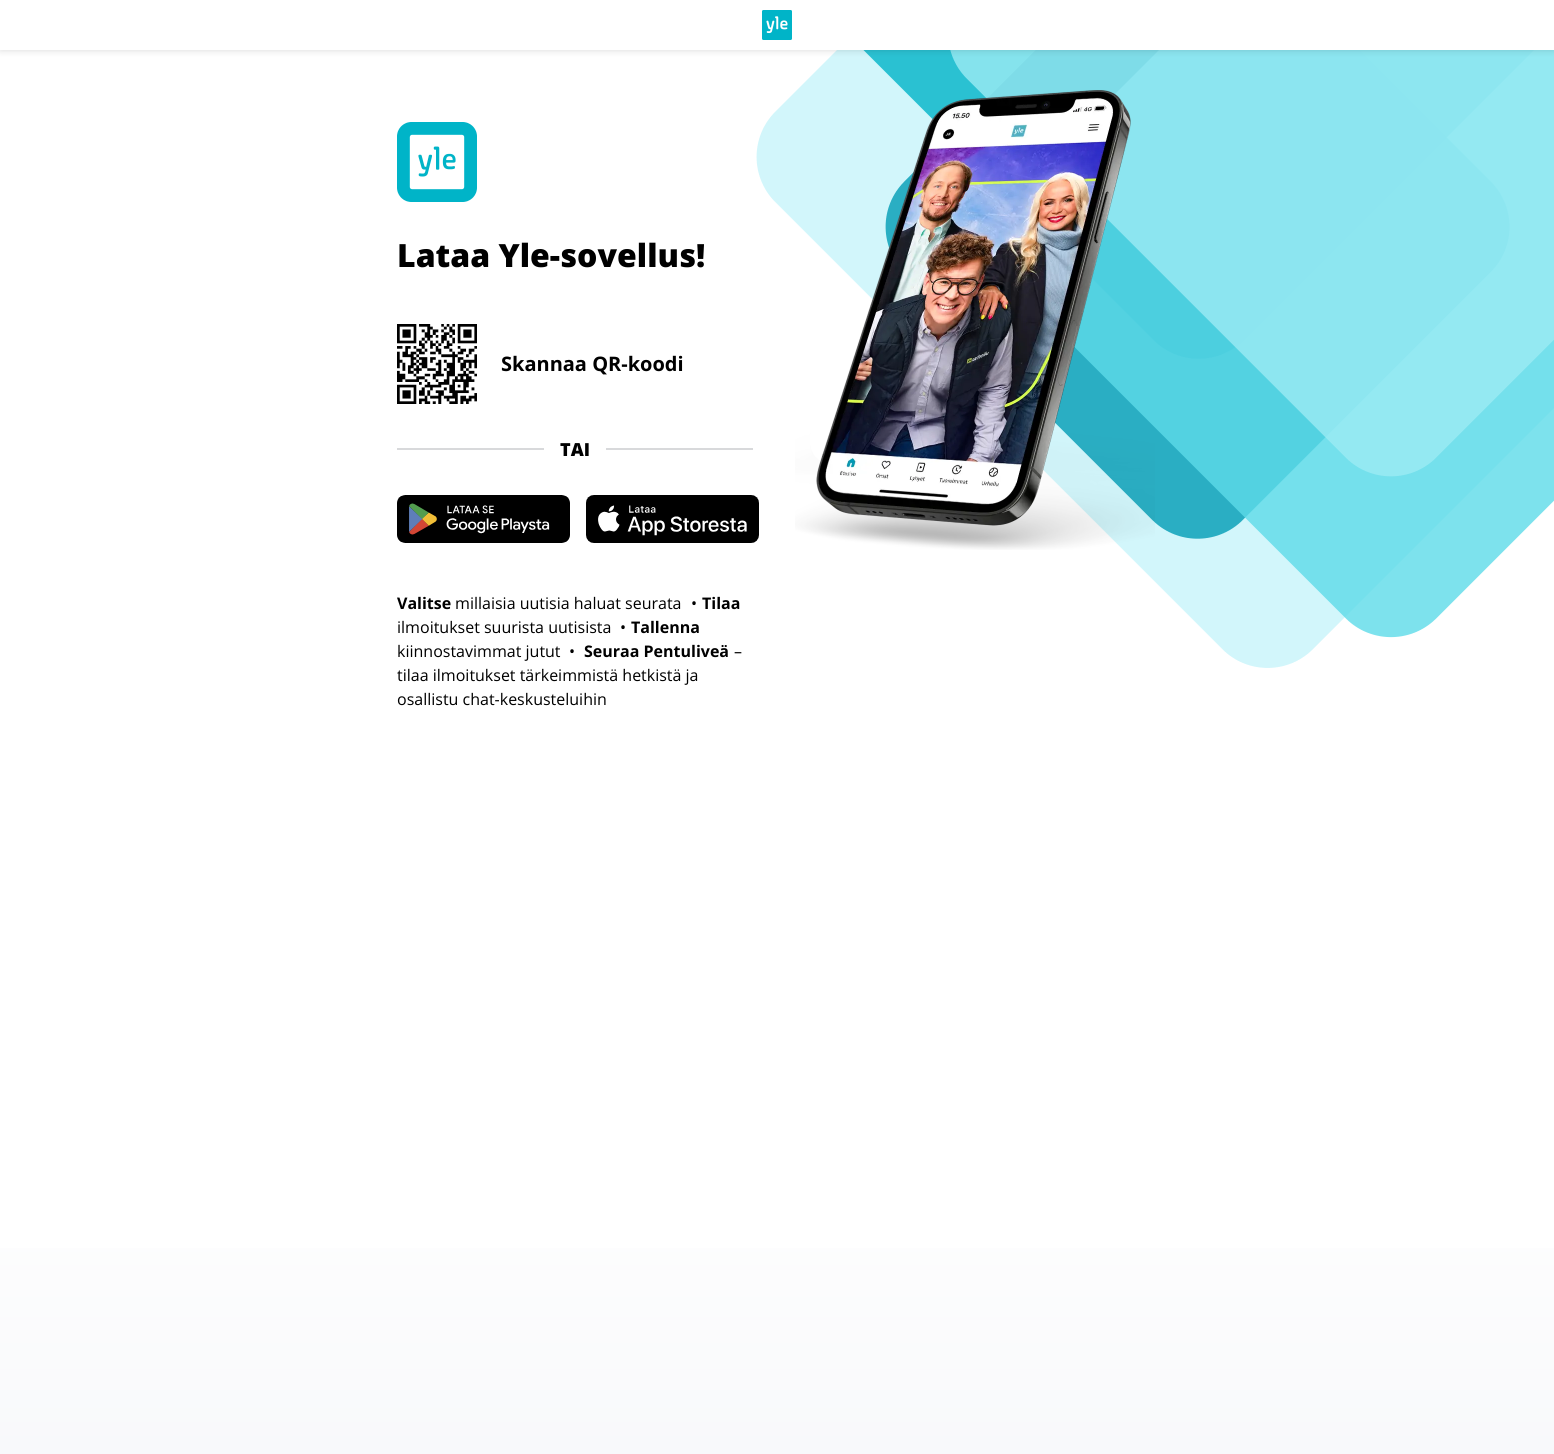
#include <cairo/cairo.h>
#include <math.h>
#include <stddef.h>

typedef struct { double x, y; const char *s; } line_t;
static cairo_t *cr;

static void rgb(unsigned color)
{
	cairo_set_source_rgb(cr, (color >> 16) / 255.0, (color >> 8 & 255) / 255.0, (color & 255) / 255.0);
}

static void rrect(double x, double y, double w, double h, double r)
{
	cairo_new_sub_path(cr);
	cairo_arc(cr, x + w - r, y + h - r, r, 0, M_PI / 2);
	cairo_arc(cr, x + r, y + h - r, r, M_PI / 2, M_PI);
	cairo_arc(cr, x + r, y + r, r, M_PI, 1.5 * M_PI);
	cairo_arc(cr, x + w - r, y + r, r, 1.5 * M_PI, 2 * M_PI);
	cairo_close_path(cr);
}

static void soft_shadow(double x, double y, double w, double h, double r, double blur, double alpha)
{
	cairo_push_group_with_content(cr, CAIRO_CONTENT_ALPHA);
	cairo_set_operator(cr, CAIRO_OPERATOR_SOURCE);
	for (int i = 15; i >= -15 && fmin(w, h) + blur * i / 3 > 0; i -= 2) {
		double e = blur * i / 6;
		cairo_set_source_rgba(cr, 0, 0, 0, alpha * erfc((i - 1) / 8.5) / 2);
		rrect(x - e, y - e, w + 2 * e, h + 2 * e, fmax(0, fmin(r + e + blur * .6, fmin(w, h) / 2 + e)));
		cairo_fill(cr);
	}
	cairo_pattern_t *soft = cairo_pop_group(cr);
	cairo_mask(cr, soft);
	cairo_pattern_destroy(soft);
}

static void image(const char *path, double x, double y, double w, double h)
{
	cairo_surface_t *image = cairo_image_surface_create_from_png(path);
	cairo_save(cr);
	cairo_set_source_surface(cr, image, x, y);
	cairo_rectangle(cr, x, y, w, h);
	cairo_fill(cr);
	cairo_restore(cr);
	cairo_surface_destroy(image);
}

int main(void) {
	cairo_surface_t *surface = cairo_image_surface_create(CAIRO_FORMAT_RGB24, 1554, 1454);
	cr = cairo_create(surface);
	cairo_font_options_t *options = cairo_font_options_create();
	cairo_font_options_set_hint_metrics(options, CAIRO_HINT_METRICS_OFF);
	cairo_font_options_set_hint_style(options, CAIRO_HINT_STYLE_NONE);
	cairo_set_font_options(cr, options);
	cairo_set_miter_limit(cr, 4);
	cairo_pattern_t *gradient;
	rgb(0xffffff);
	cairo_paint(cr);
	gradient = cairo_pattern_create_linear(777, 0, 777, 1454);
	cairo_pattern_add_color_stop_rgba(gradient, 0.78, 1, 1, 1, 1);
	cairo_pattern_add_color_stop_rgba(gradient, 1, 0.973, 0.976, 0.984, 1);
	cairo_set_source(cr, gradient);
	cairo_pattern_destroy(gradient);
	cairo_rectangle(cr, 0, 1248, 1554, 206);
	cairo_fill(cr);
	image("img/1.png", 756, 50, 798, 618);
	rgb(0x000000);
	soft_shadow(0, 0, 1554, 50, 0, 4, 0.15);
	rgb(0xffffff);
	cairo_rectangle(cr, 0, 0, 1554, 50);
	cairo_fill(cr);
	image("img/2.png", 762, 10, 30, 30);
	image("img/3.png", 795, 90, 360, 460);
	image("img/4.png", 397, 122, 80, 80);
	image("img/5.png", 397, 324, 80, 80);
	rgb(0xd8d9db);
	cairo_rectangle(cr, 397, 448, 147, 2);
	cairo_fill(cr);
	cairo_rectangle(cr, 606, 448, 147, 2);
	cairo_fill(cr);
	image("img/6.png", 397, 495, 173, 48);
	image("img/7.png", 586, 495, 173, 48);
	cairo_select_font_face(cr, "Open Sans ExtraBold", CAIRO_FONT_SLANT_NORMAL, CAIRO_FONT_WEIGHT_NORMAL);
	cairo_set_font_size(cr, 32);
	rgb(0x000000);
	cairo_move_to(cr, 397, 267);
	cairo_show_text(cr, "Lataa Yle-sovellus!");
	cairo_select_font_face(cr, "Open Sans", CAIRO_FONT_SLANT_NORMAL, CAIRO_FONT_WEIGHT_BOLD);
	cairo_set_font_size(cr, 20);
	cairo_move_to(cr, 501, 371);
	cairo_show_text(cr, "Skannaa QR-koodi");
	cairo_select_font_face(cr, "Open Sans ExtraBold", CAIRO_FONT_SLANT_NORMAL, CAIRO_FONT_WEIGHT_NORMAL);
	cairo_set_font_size(cr, 18);
	cairo_move_to(cr, 560, 456);
	cairo_show_text(cr, "TAI");
	cairo_select_font_face(cr, "Open Sans", CAIRO_FONT_SLANT_NORMAL, CAIRO_FONT_WEIGHT_BOLD);
	cairo_set_font_size(cr, 16);
	cairo_move_to(cr, 397, 609);
	cairo_show_text(cr, "Valitse");
	cairo_select_font_face(cr, "Open Sans", CAIRO_FONT_SLANT_NORMAL, CAIRO_FONT_WEIGHT_NORMAL);
	cairo_move_to(cr, 455, 609);
	cairo_show_text(cr, "millaisia uutisia haluat seurata");
	cairo_move_to(cr, 691, 609);
	cairo_show_text(cr, "•");
	cairo_select_font_face(cr, "Open Sans", CAIRO_FONT_SLANT_NORMAL, CAIRO_FONT_WEIGHT_BOLD);
	cairo_move_to(cr, 702, 609);
	cairo_show_text(cr, "Tilaa");
	cairo_select_font_face(cr, "Open Sans", CAIRO_FONT_SLANT_NORMAL, CAIRO_FONT_WEIGHT_NORMAL);
	cairo_move_to(cr, 397, 633);
	cairo_show_text(cr, "ilmoitukset suurista uutisista");
	cairo_move_to(cr, 620, 633);
	cairo_show_text(cr, "•");
	cairo_select_font_face(cr, "Open Sans", CAIRO_FONT_SLANT_NORMAL, CAIRO_FONT_WEIGHT_BOLD);
	cairo_move_to(cr, 631, 633);
	cairo_show_text(cr, "Tallenna");
	cairo_select_font_face(cr, "Open Sans", CAIRO_FONT_SLANT_NORMAL, CAIRO_FONT_WEIGHT_NORMAL);
	cairo_move_to(cr, 397, 657);
	cairo_show_text(cr, "kiinnostavimmat jutut");
	cairo_move_to(cr, 569, 657);
	cairo_show_text(cr, "•");
	cairo_select_font_face(cr, "Open Sans", CAIRO_FONT_SLANT_NORMAL, CAIRO_FONT_WEIGHT_BOLD);
	cairo_move_to(cr, 584, 657);
	cairo_show_text(cr, "Seuraa Pentuliveä");
	cairo_select_font_face(cr, "Open Sans", CAIRO_FONT_SLANT_NORMAL, CAIRO_FONT_WEIGHT_NORMAL);
	{
		static const line_t items[] = {
			{734, 657, "–"},
			{397, 681, "tilaa ilmoitukset tärkeimmistä hetkistä ja"},
			{397, 705, "osallistu chat-keskusteluihin"},
		};
		for (size_t i = 0; i < sizeof items / sizeof *items; i++) {
			cairo_move_to(cr, items[i].x, items[i].y);
			cairo_show_text(cr, items[i].s);
		}
	}
	cairo_surface_write_to_png(surface, "page.png");
	cairo_font_options_destroy(options);
	cairo_destroy(cr);
	cairo_surface_destroy(surface);
	return 0;
}
